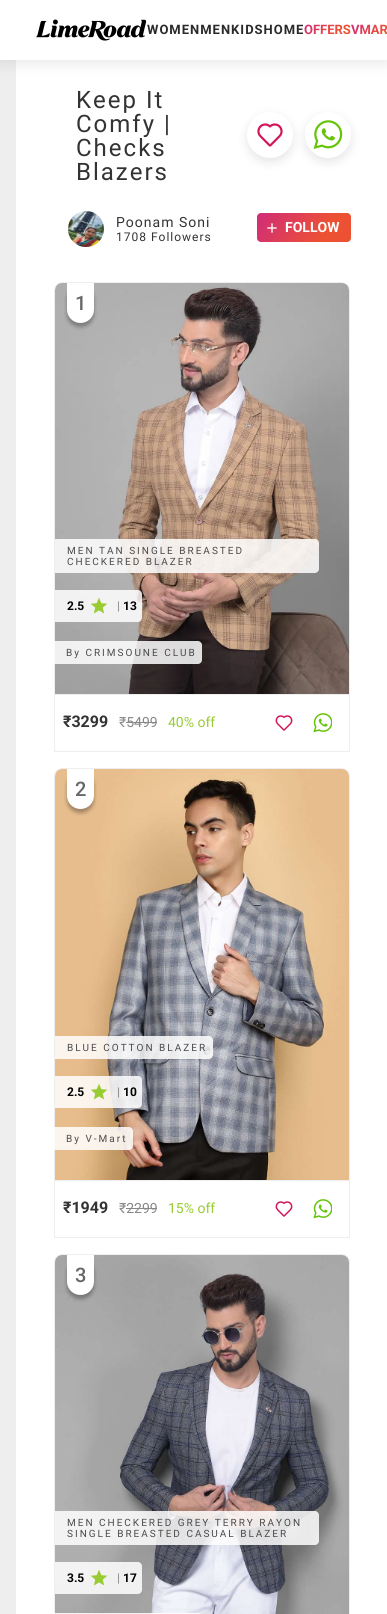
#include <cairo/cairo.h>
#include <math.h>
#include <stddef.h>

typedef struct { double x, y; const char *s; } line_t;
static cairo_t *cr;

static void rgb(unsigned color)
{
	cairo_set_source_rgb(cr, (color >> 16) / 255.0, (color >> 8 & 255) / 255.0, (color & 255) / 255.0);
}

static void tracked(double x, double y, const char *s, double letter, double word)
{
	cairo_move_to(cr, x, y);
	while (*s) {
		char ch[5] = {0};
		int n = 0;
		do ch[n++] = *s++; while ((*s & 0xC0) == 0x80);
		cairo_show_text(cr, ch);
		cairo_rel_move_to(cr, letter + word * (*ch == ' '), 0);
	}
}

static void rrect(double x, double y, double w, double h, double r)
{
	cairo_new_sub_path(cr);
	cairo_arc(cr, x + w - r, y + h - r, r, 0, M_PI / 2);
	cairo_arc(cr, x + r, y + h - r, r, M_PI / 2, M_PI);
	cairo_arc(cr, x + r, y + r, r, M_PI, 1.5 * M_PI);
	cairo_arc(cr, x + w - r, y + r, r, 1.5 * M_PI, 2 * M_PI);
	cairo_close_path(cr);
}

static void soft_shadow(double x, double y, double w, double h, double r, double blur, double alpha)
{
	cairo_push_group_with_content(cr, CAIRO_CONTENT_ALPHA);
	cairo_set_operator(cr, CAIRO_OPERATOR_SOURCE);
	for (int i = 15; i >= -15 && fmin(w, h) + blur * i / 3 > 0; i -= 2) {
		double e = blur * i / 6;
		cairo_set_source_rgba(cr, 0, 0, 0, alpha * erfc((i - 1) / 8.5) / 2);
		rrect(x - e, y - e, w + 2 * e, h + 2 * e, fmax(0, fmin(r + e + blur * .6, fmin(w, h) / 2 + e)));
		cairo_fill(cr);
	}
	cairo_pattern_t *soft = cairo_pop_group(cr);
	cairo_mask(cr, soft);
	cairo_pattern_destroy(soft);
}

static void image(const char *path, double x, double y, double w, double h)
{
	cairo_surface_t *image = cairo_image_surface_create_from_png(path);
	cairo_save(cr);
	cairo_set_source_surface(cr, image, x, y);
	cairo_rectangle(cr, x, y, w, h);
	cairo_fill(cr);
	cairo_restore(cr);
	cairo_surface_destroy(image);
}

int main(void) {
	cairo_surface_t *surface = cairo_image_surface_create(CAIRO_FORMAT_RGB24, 387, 1614);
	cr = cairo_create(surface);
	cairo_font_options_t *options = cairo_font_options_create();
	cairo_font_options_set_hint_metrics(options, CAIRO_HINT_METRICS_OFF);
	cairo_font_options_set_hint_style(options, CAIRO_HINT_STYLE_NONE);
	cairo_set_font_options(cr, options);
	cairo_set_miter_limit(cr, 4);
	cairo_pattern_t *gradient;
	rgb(0xeeeeee);
	cairo_paint(cr);
	rgb(0xffffff);
	cairo_rectangle(cr, 16, 60, 371, 1554);
	cairo_fill(cr);
	rgb(0x555555);
	soft_shadow(0, 2, 387, 60, 0, 8, 0.16);
	rgb(0xffffff);
	cairo_rectangle(cr, 0, 0, 387, 60);
	cairo_fill(cr);
	image("img/1.png", 36, 19, 111, 22);
	rgb(0x000000);
	soft_shadow(305, 116, 46, 46, 23, 5, 0.1);
	rgb(0xffffff);
	cairo_arc(cr, 328, 135, 23, 0, 2 * M_PI);
	cairo_fill(cr);
	rgb(0x000000);
	soft_shadow(247, 116, 46, 46, 23, 5, 0.1);
	rgb(0xffffff);
	cairo_arc(cr, 270, 135, 23, 0, 2 * M_PI);
	cairo_fill(cr);
	image("img/2.png", 257, 123, 26, 24);
	image("img/3.png", 313, 120, 30, 29);
	image("img/4.png", 68, 211, 36, 36);
	gradient = cairo_pattern_create_linear(260, 200, 344, 253);
	cairo_pattern_add_color_stop_rgba(gradient, 0, 0.808, 0.161, 0.494, 1);
	cairo_pattern_add_color_stop_rgba(gradient, 0.73, 0.929, 0.318, 0.2, 1);
	cairo_set_source(cr, gradient);
	cairo_pattern_destroy(gradient);
	rrect(257, 213, 94, 29, 4);
	cairo_fill(cr);
	image("img/5.png", 267, 223, 10, 10);
	rgb(0xeeeeee);
	cairo_set_fill_rule(cr, CAIRO_FILL_RULE_EVEN_ODD);
	cairo_new_path(cr);
	cairo_move_to(cr, 62, 282);
	cairo_line_to(cr, 342, 282);
	cairo_curve_to(cr, 346, 282, 350, 286, 350, 290);
	cairo_line_to(cr, 350, 694);
	cairo_line_to(cr, 54, 694);
	cairo_line_to(cr, 54, 290);
	cairo_curve_to(cr, 54, 286, 58, 282, 62, 282);
	cairo_close_path(cr);
	cairo_move_to(cr, 62, 283);
	cairo_line_to(cr, 342, 283);
	cairo_curve_to(cr, 346, 283, 349, 286, 349, 290);
	cairo_line_to(cr, 349, 694);
	cairo_line_to(cr, 55, 694);
	cairo_line_to(cr, 55, 290);
	cairo_curve_to(cr, 55, 286, 58, 283, 62, 283);
	cairo_close_path(cr);
	cairo_fill(cr);
	image("img/6.png", 55, 283, 294, 411);
	rgb(0x000000);
	soft_shadow(67, 287, 27, 40, 13.5, 2, 0.3);
	rgb(0xffffff);
	cairo_new_path(cr);
	cairo_move_to(cr, 67, 283);
	cairo_line_to(cr, 94, 283);
	cairo_line_to(cr, 94, 309.5);
	cairo_curve_to(cr, 94, 317, 88, 323, 80.5, 323);
	cairo_curve_to(cr, 73, 323, 67, 317, 67, 309.5);
	cairo_close_path(cr);
	cairo_fill(cr);
	cairo_set_source_rgba(cr, 1, 1, 1, 0.85);
	cairo_new_path(cr);
	cairo_move_to(cr, 55, 539);
	cairo_line_to(cr, 315, 539);
	cairo_curve_to(cr, 317, 539, 319, 541, 319, 543);
	cairo_line_to(cr, 319, 569);
	cairo_curve_to(cr, 319, 571, 317, 573, 315, 573);
	cairo_line_to(cr, 55, 573);
	cairo_close_path(cr);
	cairo_fill(cr);
	cairo_new_path(cr);
	cairo_move_to(cr, 55, 590);
	cairo_line_to(cr, 138, 590);
	cairo_curve_to(cr, 140, 590, 142, 592, 142, 594);
	cairo_line_to(cr, 142, 618);
	cairo_curve_to(cr, 142, 620, 140, 622, 138, 622);
	cairo_line_to(cr, 55, 622);
	cairo_close_path(cr);
	cairo_fill(cr);
	image("img/7.png", 90, 597, 18, 17);
	cairo_new_path(cr);
	cairo_move_to(cr, 54, 641);
	cairo_line_to(cr, 198, 641);
	cairo_curve_to(cr, 200, 641, 202, 643, 202, 645);
	cairo_line_to(cr, 202, 660);
	cairo_curve_to(cr, 202, 662, 200, 664, 198, 664);
	cairo_line_to(cr, 54, 664);
	cairo_close_path(cr);
	cairo_fill(cr);
	cairo_rectangle(cr, 54.5, 694.5, 295, 57);
	rgb(0xeeeeee);
	cairo_set_line_width(cr, 1);
	cairo_stroke(cr);
	rgb(0x888888);
	cairo_rectangle(cr, 126, 722, 31, 1);
	cairo_fill(cr);
	image("img/8.png", 275, 715, 18, 16);
	image("img/9.png", 313, 713, 19, 20);
	rgb(0xeeeeee);
	cairo_new_path(cr);
	cairo_move_to(cr, 62, 768);
	cairo_line_to(cr, 342, 768);
	cairo_curve_to(cr, 346, 768, 350, 772, 350, 776);
	cairo_line_to(cr, 350, 1180);
	cairo_line_to(cr, 54, 1180);
	cairo_line_to(cr, 54, 776);
	cairo_curve_to(cr, 54, 772, 58, 768, 62, 768);
	cairo_close_path(cr);
	cairo_move_to(cr, 62, 769);
	cairo_line_to(cr, 342, 769);
	cairo_curve_to(cr, 346, 769, 349, 772, 349, 776);
	cairo_line_to(cr, 349, 1180);
	cairo_line_to(cr, 55, 1180);
	cairo_line_to(cr, 55, 776);
	cairo_curve_to(cr, 55, 772, 58, 769, 62, 769);
	cairo_close_path(cr);
	cairo_fill(cr);
	image("img/10.png", 55, 769, 294, 411);
	rgb(0x000000);
	soft_shadow(67, 773, 27, 40, 13.5, 2, 0.3);
	rgb(0xffffff);
	cairo_new_path(cr);
	cairo_move_to(cr, 67, 769);
	cairo_line_to(cr, 94, 769);
	cairo_line_to(cr, 94, 795.5);
	cairo_curve_to(cr, 94, 803, 88, 809, 80.5, 809);
	cairo_curve_to(cr, 73, 809, 67, 803, 67, 795.5);
	cairo_close_path(cr);
	cairo_fill(cr);
	cairo_set_source_rgba(cr, 1, 1, 1, 0.85);
	cairo_new_path(cr);
	cairo_move_to(cr, 55, 1036);
	cairo_line_to(cr, 209, 1036);
	cairo_curve_to(cr, 211, 1036, 213, 1038, 213, 1040);
	cairo_line_to(cr, 213, 1055);
	cairo_curve_to(cr, 213, 1057, 211, 1059, 209, 1059);
	cairo_line_to(cr, 55, 1059);
	cairo_close_path(cr);
	cairo_fill(cr);
	cairo_new_path(cr);
	cairo_move_to(cr, 55, 1076);
	cairo_line_to(cr, 138, 1076);
	cairo_curve_to(cr, 140, 1076, 142, 1078, 142, 1080);
	cairo_line_to(cr, 142, 1104);
	cairo_curve_to(cr, 142, 1106, 140, 1108, 138, 1108);
	cairo_line_to(cr, 55, 1108);
	cairo_close_path(cr);
	cairo_fill(cr);
	image("img/11.png", 90, 1083, 18, 17);
	cairo_new_path(cr);
	cairo_move_to(cr, 54, 1127);
	cairo_line_to(cr, 129, 1127);
	cairo_curve_to(cr, 131, 1127, 133, 1129, 133, 1131);
	cairo_line_to(cr, 133, 1146);
	cairo_curve_to(cr, 133, 1148, 131, 1150, 129, 1150);
	cairo_line_to(cr, 54, 1150);
	cairo_close_path(cr);
	cairo_fill(cr);
	cairo_rectangle(cr, 54.5, 1180.5, 295, 57);
	rgb(0xeeeeee);
	cairo_stroke(cr);
	rgb(0x888888);
	cairo_rectangle(cr, 126, 1208, 31, 1);
	cairo_fill(cr);
	image("img/8.png", 275, 1201, 18, 16);
	image("img/9.png", 313, 1199, 19, 20);
	rgb(0xeeeeee);
	cairo_new_path(cr);
	cairo_move_to(cr, 62, 1254);
	cairo_line_to(cr, 342, 1254);
	cairo_curve_to(cr, 346, 1254, 350, 1258, 350, 1262);
	cairo_line_to(cr, 350, 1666);
	cairo_line_to(cr, 54, 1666);
	cairo_line_to(cr, 54, 1262);
	cairo_curve_to(cr, 54, 1258, 58, 1254, 62, 1254);
	cairo_close_path(cr);
	cairo_move_to(cr, 62, 1255);
	cairo_line_to(cr, 342, 1255);
	cairo_curve_to(cr, 346, 1255, 349, 1258, 349, 1262);
	cairo_line_to(cr, 349, 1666);
	cairo_line_to(cr, 55, 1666);
	cairo_line_to(cr, 55, 1262);
	cairo_curve_to(cr, 55, 1258, 58, 1255, 62, 1255);
	cairo_close_path(cr);
	cairo_fill(cr);
	image("img/12.png", 55, 1255, 294, 359);
	rgb(0x000000);
	soft_shadow(67, 1259, 27, 40, 13.5, 2, 0.3);
	rgb(0xffffff);
	cairo_new_path(cr);
	cairo_move_to(cr, 67, 1255);
	cairo_line_to(cr, 94, 1255);
	cairo_line_to(cr, 94, 1281.5);
	cairo_curve_to(cr, 94, 1289, 88, 1295, 80.5, 1295);
	cairo_curve_to(cr, 73, 1295, 67, 1289, 67, 1281.5);
	cairo_close_path(cr);
	cairo_fill(cr);
	cairo_set_source_rgba(cr, 1, 1, 1, 0.85);
	cairo_new_path(cr);
	cairo_move_to(cr, 55, 1511);
	cairo_line_to(cr, 315, 1511);
	cairo_curve_to(cr, 317, 1511, 319, 1513, 319, 1515);
	cairo_line_to(cr, 319, 1541);
	cairo_curve_to(cr, 319, 1543, 317, 1545, 315, 1545);
	cairo_line_to(cr, 55, 1545);
	cairo_close_path(cr);
	cairo_fill(cr);
	cairo_new_path(cr);
	cairo_move_to(cr, 55, 1562);
	cairo_line_to(cr, 138, 1562);
	cairo_curve_to(cr, 140, 1562, 142, 1564, 142, 1566);
	cairo_line_to(cr, 142, 1590);
	cairo_curve_to(cr, 142, 1592, 140, 1594, 138, 1594);
	cairo_line_to(cr, 55, 1594);
	cairo_close_path(cr);
	cairo_fill(cr);
	image("img/13.png", 90, 1569, 18, 17);
	cairo_new_path(cr);
	cairo_move_to(cr, 54, 1613);
	cairo_line_to(cr, 198, 1613);
	cairo_curve_to(cr, 200, 1613, 202, 1615, 202, 1617);
	cairo_line_to(cr, 202, 1614);
	cairo_line_to(cr, 54, 1614);
	cairo_close_path(cr);
	cairo_fill(cr);
	cairo_select_font_face(cr, "Roboto", CAIRO_FONT_SLANT_NORMAL, CAIRO_FONT_WEIGHT_BOLD);
	cairo_set_font_size(cr, 13);
	rgb(0x2a2a2a);
	tracked(147, 34, "WOMENMENKIDSHOME", 1, 0);
	gradient = cairo_pattern_create_linear(306, 15, 348, 42);
	cairo_pattern_add_color_stop_rgba(gradient, 0, 0.808, 0.161, 0.494, 1);
	cairo_pattern_add_color_stop_rgba(gradient, 0.73, 0.929, 0.318, 0.2, 1);
	cairo_set_source(cr, gradient);
	cairo_pattern_destroy(gradient);
	cairo_move_to(cr, 304, 34);
	cairo_show_text(cr, "OFFERS");
	gradient = cairo_pattern_create_linear(353, 16, 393, 42);
	cairo_pattern_add_color_stop_rgba(gradient, 0, 0.808, 0.161, 0.494, 1);
	cairo_pattern_add_color_stop_rgba(gradient, 0.73, 0.929, 0.318, 0.2, 1);
	cairo_set_source(cr, gradient);
	cairo_pattern_destroy(gradient);
	cairo_move_to(cr, 351, 34);
	cairo_show_text(cr, "VMAR");
	cairo_select_font_face(cr, "Roboto", CAIRO_FONT_SLANT_NORMAL, CAIRO_FONT_WEIGHT_NORMAL);
	cairo_set_font_size(cr, 24);
	rgb(0x333333);
	{
		static const line_t items[] = {
			{76, 108, "Keep It"},
			{76, 132, "Comfy |"},
			{76, 156, "Checks"},
			{76, 180, "Blazers"},
		};
		for (size_t i = 0; i < sizeof items / sizeof *items; i++) {
			tracked(items[i].x, items[i].y, items[i].s, 2, 0);
		}
	}
	cairo_set_font_size(cr, 14);
	tracked(116, 227, "Poonam Soni", 1, 0);
	cairo_set_font_size(cr, 12);
	tracked(116, 241, "1708 Followers", 1, 0);
	cairo_select_font_face(cr, "Roboto", CAIRO_FONT_SLANT_NORMAL, CAIRO_FONT_WEIGHT_BOLD);
	cairo_set_font_size(cr, 14);
	rgb(0xffffff);
	cairo_move_to(cr, 285, 232);
	cairo_show_text(cr, "FOLLOW");
	cairo_select_font_face(cr, "Roboto Medium", CAIRO_FONT_SLANT_NORMAL, CAIRO_FONT_WEIGHT_NORMAL);
	cairo_set_font_size(cr, 20);
	rgb(0x666666);
	cairo_move_to(cr, 75, 310);
	cairo_show_text(cr, "1");
	cairo_select_font_face(cr, "Roboto", CAIRO_FONT_SLANT_NORMAL, CAIRO_FONT_WEIGHT_NORMAL);
	cairo_set_font_size(cr, 10);
	rgb(0x4b4b4b);
	tracked(67, 554, "MEN TAN SINGLE BREASTED", 2, 0);
	tracked(67, 565, "CHECKERED BLAZER", 2, 0);
	cairo_select_font_face(cr, "Roboto", CAIRO_FONT_SLANT_NORMAL, CAIRO_FONT_WEIGHT_BOLD);
	cairo_set_font_size(cr, 12);
	rgb(0x000000);
	cairo_move_to(cr, 67, 610);
	cairo_show_text(cr, "2.5");
	cairo_select_font_face(cr, "Roboto", CAIRO_FONT_SLANT_NORMAL, CAIRO_FONT_WEIGHT_NORMAL);
	rgb(0x888888);
	cairo_move_to(cr, 117, 610);
	cairo_show_text(cr, "|");
	cairo_select_font_face(cr, "Roboto", CAIRO_FONT_SLANT_NORMAL, CAIRO_FONT_WEIGHT_BOLD);
	rgb(0x000000);
	cairo_move_to(cr, 123, 610);
	cairo_show_text(cr, "13");
	cairo_select_font_face(cr, "Roboto", CAIRO_FONT_SLANT_NORMAL, CAIRO_FONT_WEIGHT_NORMAL);
	cairo_set_font_size(cr, 10);
	rgb(0x4b4b4b);
	tracked(66, 656, "By CRIMSOUNE CLUB", 2, 0);
	cairo_select_font_face(cr, "Roboto", CAIRO_FONT_SLANT_NORMAL, CAIRO_FONT_WEIGHT_BOLD);
	cairo_set_font_size(cr, 16);
	rgb(0x333333);
	cairo_move_to(cr, 63, 727);
	cairo_show_text(cr, "₹3299");
	cairo_select_font_face(cr, "Roboto", CAIRO_FONT_SLANT_NORMAL, CAIRO_FONT_WEIGHT_NORMAL);
	cairo_set_font_size(cr, 14);
	rgb(0x888888);
	cairo_move_to(cr, 119, 727);
	cairo_show_text(cr, "₹5499");
	rgb(0x99cc33);
	cairo_move_to(cr, 168, 727);
	cairo_show_text(cr, "40% off");
	cairo_select_font_face(cr, "Roboto Medium", CAIRO_FONT_SLANT_NORMAL, CAIRO_FONT_WEIGHT_NORMAL);
	cairo_set_font_size(cr, 20);
	rgb(0x666666);
	cairo_move_to(cr, 75, 796);
	cairo_show_text(cr, "2");
	cairo_select_font_face(cr, "Roboto", CAIRO_FONT_SLANT_NORMAL, CAIRO_FONT_WEIGHT_NORMAL);
	cairo_set_font_size(cr, 10);
	rgb(0x4b4b4b);
	tracked(67, 1051, "BLUE COTTON BLAZER", 2, 0);
	cairo_select_font_face(cr, "Roboto", CAIRO_FONT_SLANT_NORMAL, CAIRO_FONT_WEIGHT_BOLD);
	cairo_set_font_size(cr, 12);
	rgb(0x000000);
	cairo_move_to(cr, 67, 1096);
	cairo_show_text(cr, "2.5");
	cairo_select_font_face(cr, "Roboto", CAIRO_FONT_SLANT_NORMAL, CAIRO_FONT_WEIGHT_NORMAL);
	rgb(0x888888);
	cairo_move_to(cr, 117, 1096);
	cairo_show_text(cr, "|");
	cairo_select_font_face(cr, "Roboto", CAIRO_FONT_SLANT_NORMAL, CAIRO_FONT_WEIGHT_BOLD);
	rgb(0x000000);
	cairo_move_to(cr, 123, 1096);
	cairo_show_text(cr, "10");
	cairo_select_font_face(cr, "Roboto", CAIRO_FONT_SLANT_NORMAL, CAIRO_FONT_WEIGHT_NORMAL);
	cairo_set_font_size(cr, 10);
	rgb(0x4b4b4b);
	tracked(66, 1142, "By V-Mart", 2, 0);
	cairo_select_font_face(cr, "Roboto", CAIRO_FONT_SLANT_NORMAL, CAIRO_FONT_WEIGHT_BOLD);
	cairo_set_font_size(cr, 16);
	rgb(0x333333);
	cairo_move_to(cr, 63, 1213);
	cairo_show_text(cr, "₹1949");
	cairo_select_font_face(cr, "Roboto", CAIRO_FONT_SLANT_NORMAL, CAIRO_FONT_WEIGHT_NORMAL);
	cairo_set_font_size(cr, 14);
	rgb(0x888888);
	cairo_move_to(cr, 119, 1213);
	cairo_show_text(cr, "₹2299");
	rgb(0x99cc33);
	cairo_move_to(cr, 168, 1213);
	cairo_show_text(cr, "15% off");
	cairo_select_font_face(cr, "Roboto Medium", CAIRO_FONT_SLANT_NORMAL, CAIRO_FONT_WEIGHT_NORMAL);
	cairo_set_font_size(cr, 20);
	rgb(0x666666);
	cairo_move_to(cr, 75, 1282);
	cairo_show_text(cr, "3");
	cairo_select_font_face(cr, "Roboto", CAIRO_FONT_SLANT_NORMAL, CAIRO_FONT_WEIGHT_NORMAL);
	cairo_set_font_size(cr, 10);
	rgb(0x4b4b4b);
	tracked(67, 1526, "MEN CHECKERED GREY TERRY RAYON", 2, 0);
	tracked(67, 1537, "SINGLE BREASTED CASUAL BLAZER", 2, 0);
	cairo_select_font_face(cr, "Roboto", CAIRO_FONT_SLANT_NORMAL, CAIRO_FONT_WEIGHT_BOLD);
	cairo_set_font_size(cr, 12);
	rgb(0x000000);
	cairo_move_to(cr, 67, 1582);
	cairo_show_text(cr, "3.5");
	cairo_select_font_face(cr, "Roboto", CAIRO_FONT_SLANT_NORMAL, CAIRO_FONT_WEIGHT_NORMAL);
	rgb(0x888888);
	cairo_move_to(cr, 117, 1582);
	cairo_show_text(cr, "|");
	cairo_select_font_face(cr, "Roboto", CAIRO_FONT_SLANT_NORMAL, CAIRO_FONT_WEIGHT_BOLD);
	rgb(0x000000);
	cairo_move_to(cr, 123, 1582);
	cairo_show_text(cr, "17");
	cairo_surface_write_to_png(surface, "page.png");
	cairo_font_options_destroy(options);
	cairo_destroy(cr);
	cairo_surface_destroy(surface);
	return 0;
}
